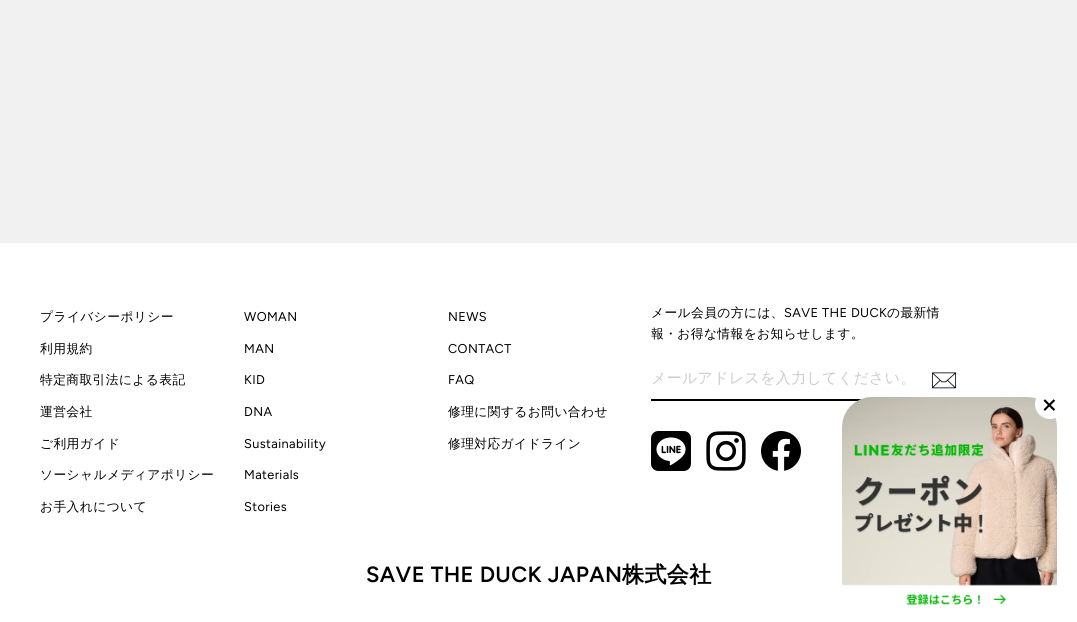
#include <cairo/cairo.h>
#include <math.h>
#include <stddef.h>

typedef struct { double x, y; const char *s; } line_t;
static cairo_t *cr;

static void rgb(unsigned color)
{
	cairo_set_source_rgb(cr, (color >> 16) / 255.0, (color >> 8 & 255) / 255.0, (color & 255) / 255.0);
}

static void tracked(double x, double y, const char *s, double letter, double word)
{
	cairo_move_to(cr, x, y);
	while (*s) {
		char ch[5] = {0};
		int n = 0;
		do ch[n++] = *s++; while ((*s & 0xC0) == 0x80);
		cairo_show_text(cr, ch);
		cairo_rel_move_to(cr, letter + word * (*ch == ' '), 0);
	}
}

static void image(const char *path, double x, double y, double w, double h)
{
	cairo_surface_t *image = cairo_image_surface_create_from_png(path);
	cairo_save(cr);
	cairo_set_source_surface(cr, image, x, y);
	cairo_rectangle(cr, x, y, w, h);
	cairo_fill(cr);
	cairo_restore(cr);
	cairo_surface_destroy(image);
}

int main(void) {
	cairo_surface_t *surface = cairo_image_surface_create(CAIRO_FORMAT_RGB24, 1077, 622);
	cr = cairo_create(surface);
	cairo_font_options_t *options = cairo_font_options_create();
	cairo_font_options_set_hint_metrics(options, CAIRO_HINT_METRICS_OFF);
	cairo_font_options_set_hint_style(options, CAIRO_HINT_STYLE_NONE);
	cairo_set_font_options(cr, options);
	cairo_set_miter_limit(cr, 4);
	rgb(0xf1f1f1);
	cairo_paint(cr);
	rgb(0xffffff);
	cairo_rectangle(cr, 0, 243, 1077, 379);
	cairo_fill(cr);
	rgb(0x000000);
	cairo_rectangle(cr, 651, 399, 210, 2);
	cairo_fill(cr);
	image("img/1.png", 931, 372, 26, 17);
	image("img/2.png", 651, 431, 40, 40);
	image("img/3.png", 706, 431, 40, 40);
	image("img/4.png", 761, 431, 40, 40);
	image("img/5.png", 842, 397, 215, 209);
	rgb(0xffffff);
	cairo_arc(cr, 1050, 404, 15, 0, 2 * M_PI);
	cairo_fill(cr);
	cairo_select_font_face(cr, "WenQuanYi Zen Hei Medium", CAIRO_FONT_SLANT_NORMAL, CAIRO_FONT_WEIGHT_NORMAL);
	cairo_set_font_size(cr, 12.75);
	rgb(0x000000);
	{
		static const line_t items[] = {
			{40, 321, "プライバシーポリシー"},
			{40, 353, "利用規約"},
			{40, 384, "特定商取引法による表記"},
			{40, 416, "運営会社"},
			{40, 448, "ご利用ガイド"},
			{40, 479, "ソーシャルメディアポリシー"},
			{40, 511, "お手入れについて"},
		};
		for (size_t i = 0; i < sizeof items / sizeof *items; i++) {
			tracked(items[i].x, items[i].y, items[i].s, 0.4, 0);
		}
	}
	cairo_select_font_face(cr, "Figtree", CAIRO_FONT_SLANT_NORMAL, CAIRO_FONT_WEIGHT_NORMAL);
	{
		static const line_t items[] = {
			{244, 321, "WOMAN"},
			{244, 353, "MAN"},
			{244, 384, "KID"},
			{244, 416, "DNA"},
			{244, 448, "Sustainability"},
			{244, 479, "Materials"},
			{244, 511, "Stories"},
			{448, 321, "NEWS"},
			{448, 353, "CONTACT"},
			{448, 384, "FAQ"},
		};
		for (size_t i = 0; i < sizeof items / sizeof *items; i++) {
			tracked(items[i].x, items[i].y, items[i].s, 0.4, 0);
		}
	}
	cairo_select_font_face(cr, "WenQuanYi Zen Hei Medium", CAIRO_FONT_SLANT_NORMAL, CAIRO_FONT_WEIGHT_NORMAL);
	{
		static const line_t items[] = {
			{448, 416, "修理に関するお問い合わせ"},
			{448, 448, "修理対応ガイドライン"},
			{651, 317, "メール会員の方には、"},
		};
		for (size_t i = 0; i < sizeof items / sizeof *items; i++) {
			tracked(items[i].x, items[i].y, items[i].s, 0.4, 0);
		}
	}
	cairo_select_font_face(cr, "Figtree", CAIRO_FONT_SLANT_NORMAL, CAIRO_FONT_WEIGHT_NORMAL);
	tracked(784, 317, "SAVE THE DUCK", 0.4, 0);
	cairo_select_font_face(cr, "WenQuanYi Zen Hei Medium", CAIRO_FONT_SLANT_NORMAL, CAIRO_FONT_WEIGHT_NORMAL);
	tracked(887, 317, "の最新情", 0.4, 0);
	tracked(651, 338, "報・お得な情報をお知らせします。", 0.4, 0);
	cairo_set_font_size(cr, 15);
	rgb(0xcccccc);
	tracked(651, 383, "メールアドレスを入力してください。", 0.3, 0);
	cairo_select_font_face(cr, "Figtree SemiBold", CAIRO_FONT_SLANT_NORMAL, CAIRO_FONT_WEIGHT_NORMAL);
	cairo_set_font_size(cr, 22);
	rgb(0x000000);
	tracked(366, 582, "SAVE THE DUCK JAPAN", 0.4, 0);
	cairo_select_font_face(cr, "WenQuanYi Zen Hei", CAIRO_FONT_SLANT_NORMAL, CAIRO_FONT_WEIGHT_BOLD);
	tracked(622, 582, "株式会社", 0.4, 0);
	cairo_select_font_face(cr, "Figtree", CAIRO_FONT_SLANT_NORMAL, CAIRO_FONT_WEIGHT_NORMAL);
	cairo_set_font_size(cr, 30);
	tracked(1040, 414, "×", 0.4, 0);
	cairo_surface_write_to_png(surface, "page.png");
	cairo_font_options_destroy(options);
	cairo_destroy(cr);
	cairo_surface_destroy(surface);
	return 0;
}
